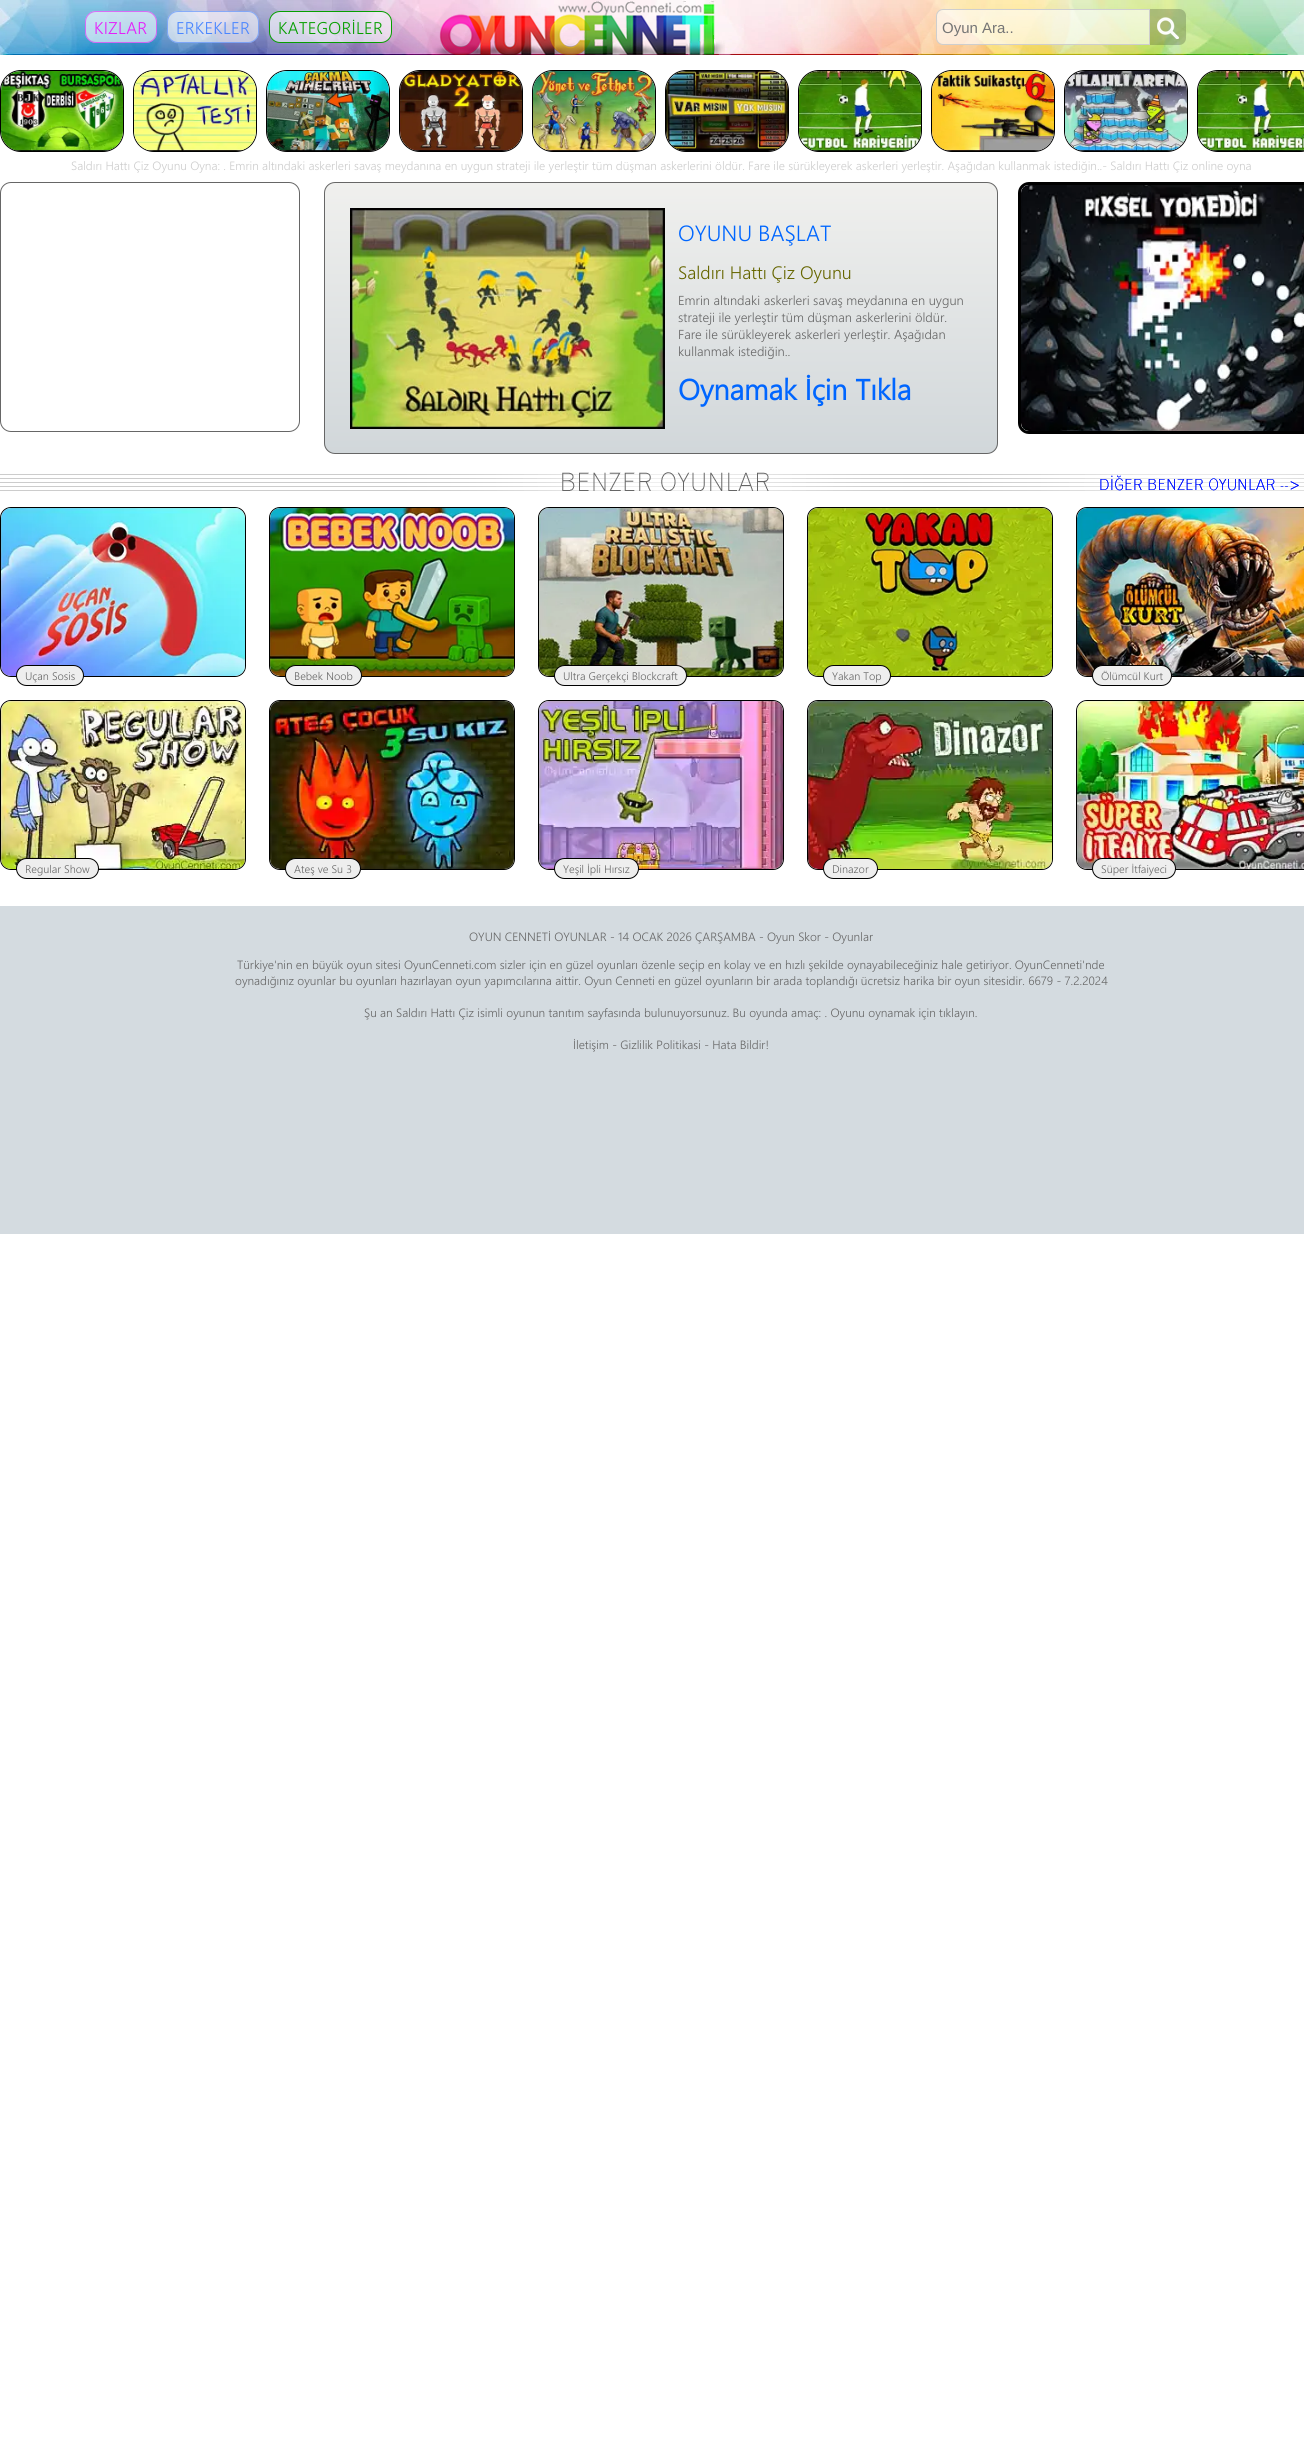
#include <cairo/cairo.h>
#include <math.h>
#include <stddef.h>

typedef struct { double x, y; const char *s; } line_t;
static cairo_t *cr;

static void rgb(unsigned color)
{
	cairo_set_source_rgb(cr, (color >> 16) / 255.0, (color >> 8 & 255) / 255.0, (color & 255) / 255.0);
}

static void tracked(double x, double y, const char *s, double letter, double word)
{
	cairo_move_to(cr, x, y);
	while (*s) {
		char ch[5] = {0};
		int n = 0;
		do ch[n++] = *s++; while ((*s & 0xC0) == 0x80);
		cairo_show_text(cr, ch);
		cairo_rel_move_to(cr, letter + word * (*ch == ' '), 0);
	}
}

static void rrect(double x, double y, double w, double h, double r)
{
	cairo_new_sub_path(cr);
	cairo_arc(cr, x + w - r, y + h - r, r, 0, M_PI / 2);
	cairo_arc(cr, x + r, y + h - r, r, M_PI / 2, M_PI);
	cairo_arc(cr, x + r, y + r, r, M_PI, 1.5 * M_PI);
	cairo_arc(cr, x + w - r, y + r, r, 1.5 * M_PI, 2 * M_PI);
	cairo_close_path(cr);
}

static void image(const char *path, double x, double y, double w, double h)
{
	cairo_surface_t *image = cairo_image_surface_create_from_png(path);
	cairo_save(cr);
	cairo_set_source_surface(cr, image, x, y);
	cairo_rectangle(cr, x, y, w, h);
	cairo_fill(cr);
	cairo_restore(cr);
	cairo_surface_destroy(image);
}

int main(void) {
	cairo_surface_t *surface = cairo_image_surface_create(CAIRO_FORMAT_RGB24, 1304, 2448);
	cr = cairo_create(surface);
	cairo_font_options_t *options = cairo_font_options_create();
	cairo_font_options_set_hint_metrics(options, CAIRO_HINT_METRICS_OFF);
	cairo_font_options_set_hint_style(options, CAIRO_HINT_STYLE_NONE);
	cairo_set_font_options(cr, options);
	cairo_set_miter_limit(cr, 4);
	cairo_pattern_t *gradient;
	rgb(0xffffff);
	cairo_paint(cr);
	image("img/1.png", 0, 0, 1304, 55);
	cairo_set_source_rgba(cr, 1, 1, 1, 0.6);
	rrect(85, 11, 72, 32, 11);
	cairo_fill(cr);
	rrect(85.5, 11.5, 71, 31, 10.5);
	cairo_set_source_rgba(cr, 0.898, 0.122, 0.98, 0.6);
	cairo_set_line_width(cr, 1);
	cairo_stroke(cr);
	cairo_set_source_rgba(cr, 1, 1, 1, 0.6);
	rrect(167, 11, 92, 32, 11);
	cairo_fill(cr);
	rrect(167.5, 11.5, 91, 31, 10.5);
	cairo_set_source_rgba(cr, 0.29, 0.525, 1, 0.6);
	cairo_stroke(cr);
	cairo_set_source_rgba(cr, 1, 1, 1, 0.6);
	rrect(269.5, 11.5, 122, 31, 10.5);
	cairo_fill_preserve(cr);
	rgb(0x079f00);
	cairo_stroke(cr);
	image("img/2.png", 433, 1, 292, 54);
	cairo_set_source_rgba(cr, 1, 1, 1, 0.6);
	cairo_new_path(cr);
	cairo_move_to(cr, 943, 9.5);
	cairo_line_to(cr, 1149.5, 9.5);
	cairo_line_to(cr, 1149.5, 44.5);
	cairo_line_to(cr, 943, 44.5);
	cairo_curve_to(cr, 939.5, 44.5, 936.5, 41.5, 936.5, 38);
	cairo_line_to(cr, 936.5, 16);
	cairo_curve_to(cr, 936.5, 12.5, 939.5, 9.5, 943, 9.5);
	cairo_close_path(cr);
	cairo_fill_preserve(cr);
	rgb(0xcecece);
	cairo_stroke(cr);
	cairo_set_source_rgba(cr, 0, 0, 0, 0.2);
	cairo_new_path(cr);
	cairo_move_to(cr, 1150, 9);
	cairo_line_to(cr, 1179, 9);
	cairo_curve_to(cr, 1183, 9, 1186, 12, 1186, 16);
	cairo_line_to(cr, 1186, 38);
	cairo_curve_to(cr, 1186, 42, 1183, 45, 1179, 45);
	cairo_line_to(cr, 1150, 45);
	cairo_close_path(cr);
	cairo_fill(cr);
	image("img/3.png", 1157, 17, 22, 22);
	rgb(0xeeeeee);
	rrect(0.5, 70.5, 123, 81, 20.5);
	cairo_fill_preserve(cr);
	rgb(0x000000);
	cairo_stroke(cr);
	image("img/4.png", 1, 71, 122, 80);
	rgb(0xeeeeee);
	rrect(133.5, 70.5, 123, 81, 20.5);
	cairo_fill_preserve(cr);
	rgb(0x000000);
	cairo_stroke(cr);
	image("img/5.png", 134, 71, 122, 80);
	rgb(0xeeeeee);
	rrect(266.5, 70.5, 123, 81, 20.5);
	cairo_fill_preserve(cr);
	rgb(0x000000);
	cairo_stroke(cr);
	image("img/6.png", 267, 71, 122, 80);
	rgb(0xeeeeee);
	rrect(399.5, 70.5, 123, 81, 20.5);
	cairo_fill_preserve(cr);
	rgb(0x000000);
	cairo_stroke(cr);
	image("img/7.png", 400, 71, 122, 80);
	rgb(0xeeeeee);
	rrect(532.5, 70.5, 123, 81, 20.5);
	cairo_fill_preserve(cr);
	rgb(0x000000);
	cairo_stroke(cr);
	image("img/8.png", 533, 71, 122, 80);
	rgb(0xeeeeee);
	rrect(665.5, 70.5, 123, 81, 20.5);
	cairo_fill_preserve(cr);
	rgb(0x000000);
	cairo_stroke(cr);
	image("img/9.png", 666, 71, 122, 80);
	rgb(0xeeeeee);
	rrect(798.5, 70.5, 123, 81, 20.5);
	cairo_fill_preserve(cr);
	rgb(0x000000);
	cairo_stroke(cr);
	image("img/10.png", 799, 71, 122, 80);
	rgb(0xeeeeee);
	rrect(931.5, 70.5, 123, 81, 20.5);
	cairo_fill_preserve(cr);
	rgb(0x000000);
	cairo_stroke(cr);
	image("img/11.png", 932, 71, 122, 80);
	rgb(0xeeeeee);
	rrect(1064.5, 70.5, 123, 81, 20.5);
	cairo_fill_preserve(cr);
	rgb(0x000000);
	cairo_stroke(cr);
	image("img/12.png", 1065, 71, 122, 80);
	rgb(0xeeeeee);
	rrect(1197.5, 70.5, 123, 81, 20.5);
	cairo_fill_preserve(cr);
	rgb(0x000000);
	cairo_stroke(cr);
	image("img/13.png", 1198, 71, 106, 80);
	rrect(0.5, 182.5, 299, 249, 10.5);
	rgb(0x666666);
	cairo_stroke(cr);
	cairo_save(cr);
	rrect(324, 182, 674, 272, 11);
	cairo_clip(cr);
	gradient = cairo_pattern_create_linear(325, 183, 325, 453);
	cairo_pattern_add_color_stop_rgba(gradient, 0, 0.941, 0.941, 0.933, 1);
	cairo_pattern_add_color_stop_rgba(gradient, 1, 0.82, 0.843, 0.855, 1);
	cairo_set_source(cr, gradient);
	cairo_pattern_destroy(gradient);
	cairo_rectangle(cr, 324, 183, 674, 270);
	cairo_fill(cr);
	cairo_restore(cr);
	rrect(324.5, 182.5, 673, 271, 10.5);
	cairo_stroke(cr);
	image("img/14.png", 350, 208, 315, 221);
	rrect(1019.5, 183.5, 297, 249, 9.5);
	rgb(0x000000);
	cairo_set_line_width(cr, 3);
	cairo_stroke(cr);
	rgb(0xffffff);
	rrect(1021, 185, 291, 246, 8);
	cairo_fill(cr);
	image("img/15.png", 1021, 185, 283, 246);
	image("img/16.png", 0, 472, 1304, 19);
	rgb(0xeeeeee);
	rrect(0.5, 507.5, 245, 169, 10.5);
	cairo_fill_preserve(cr);
	rgb(0x000000);
	cairo_set_line_width(cr, 1);
	cairo_stroke(cr);
	image("img/17.png", 1, 508, 244, 168);
	rgb(0xeeeeee);
	rrect(16.5, 665.5, 67, 20, 10);
	cairo_fill_preserve(cr);
	rgb(0x000000);
	cairo_stroke(cr);
	rgb(0xeeeeee);
	rrect(269.5, 507.5, 245, 169, 10.5);
	cairo_fill_preserve(cr);
	rgb(0x000000);
	cairo_stroke(cr);
	image("img/18.png", 270, 508, 244, 168);
	rgb(0xeeeeee);
	rrect(285.5, 665.5, 76, 20, 10);
	cairo_fill_preserve(cr);
	rgb(0x000000);
	cairo_stroke(cr);
	rgb(0xeeeeee);
	rrect(538.5, 507.5, 245, 169, 10.5);
	cairo_fill_preserve(cr);
	rgb(0x000000);
	cairo_stroke(cr);
	image("img/19.png", 539, 508, 244, 168);
	rgb(0xeeeeee);
	rrect(554.5, 665.5, 132, 20, 10);
	cairo_fill_preserve(cr);
	rgb(0x000000);
	cairo_stroke(cr);
	rgb(0xeeeeee);
	rrect(807.5, 507.5, 245, 169, 10.5);
	cairo_fill_preserve(cr);
	rgb(0x000000);
	cairo_stroke(cr);
	image("img/20.png", 808, 508, 244, 168);
	rgb(0xeeeeee);
	rrect(823.5, 665.5, 67, 20, 10);
	cairo_fill_preserve(cr);
	rgb(0x000000);
	cairo_stroke(cr);
	rgb(0xeeeeee);
	rrect(1076.5, 507.5, 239, 169, 10.5);
	cairo_fill_preserve(cr);
	rgb(0x000000);
	cairo_stroke(cr);
	image("img/21.png", 1077, 508, 227, 168);
	rgb(0xeeeeee);
	rrect(1092.5, 665.5, 79, 20, 10);
	cairo_fill_preserve(cr);
	rgb(0x000000);
	cairo_stroke(cr);
	rgb(0xeeeeee);
	rrect(0.5, 700.5, 245, 169, 10.5);
	cairo_fill_preserve(cr);
	rgb(0x000000);
	cairo_stroke(cr);
	image("img/22.png", 1, 701, 244, 168);
	rgb(0xeeeeee);
	rrect(16.5, 858.5, 82, 20, 10);
	cairo_fill_preserve(cr);
	rgb(0x000000);
	cairo_stroke(cr);
	rgb(0xeeeeee);
	rrect(269.5, 700.5, 245, 169, 10.5);
	cairo_fill_preserve(cr);
	rgb(0x000000);
	cairo_stroke(cr);
	image("img/23.png", 270, 701, 244, 168);
	rgb(0xeeeeee);
	rrect(285.5, 858.5, 75, 20, 10);
	cairo_fill_preserve(cr);
	rgb(0x000000);
	cairo_stroke(cr);
	rgb(0xeeeeee);
	rrect(538.5, 700.5, 245, 169, 10.5);
	cairo_fill_preserve(cr);
	rgb(0x000000);
	cairo_stroke(cr);
	image("img/24.png", 539, 701, 244, 168);
	rgb(0xeeeeee);
	rrect(554.5, 858.5, 84, 20, 10);
	cairo_fill_preserve(cr);
	rgb(0x000000);
	cairo_stroke(cr);
	rgb(0xeeeeee);
	rrect(807.5, 700.5, 245, 169, 10.5);
	cairo_fill_preserve(cr);
	rgb(0x000000);
	cairo_stroke(cr);
	image("img/25.png", 808, 701, 244, 168);
	rgb(0xeeeeee);
	rrect(823.5, 858.5, 54, 20, 10);
	cairo_fill_preserve(cr);
	rgb(0x000000);
	cairo_stroke(cr);
	rgb(0xeeeeee);
	rrect(1076.5, 700.5, 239, 169, 10.5);
	cairo_fill_preserve(cr);
	rgb(0x000000);
	cairo_stroke(cr);
	image("img/26.png", 1077, 701, 227, 168);
	rgb(0xeeeeee);
	rrect(1092.5, 858.5, 83, 20, 10);
	cairo_fill_preserve(cr);
	rgb(0x000000);
	cairo_stroke(cr);
	rgb(0xd4dbe0);
	cairo_rectangle(cr, 0, 906, 1304, 328);
	cairo_fill(cr);
	cairo_select_font_face(cr, "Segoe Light", CAIRO_FONT_SLANT_NORMAL, CAIRO_FONT_WEIGHT_NORMAL);
	cairo_set_font_size(cr, 17);
	rgb(0xe51ffa);
	tracked(94, 34, "KIZLAR", 0.25, 0);
	rgb(0x4a86ff);
	tracked(176, 34, "ERKEKLER", 0.25, 0);
	rgb(0x079f00);
	tracked(278, 34, "KATEGORİLER", 0.25, 0);
	cairo_select_font_face(cr, "Liberation Sans", CAIRO_FONT_SLANT_NORMAL, CAIRO_FONT_WEIGHT_NORMAL);
	cairo_set_font_size(cr, 15);
	rgb(0x757575);
	cairo_move_to(cr, 942, 33);
	cairo_show_text(cr, "Oyun Ara..");
	cairo_select_font_face(cr, "Segoe Light", CAIRO_FONT_SLANT_NORMAL, CAIRO_FONT_WEIGHT_NORMAL);
	cairo_set_font_size(cr, 12);
	rgb(0xcccccc);
	cairo_move_to(cr, 71, 170);
	cairo_show_text(cr, "Saldırı Hattı Çiz Oyunu Oyna: . Emrin altındaki askerleri savaş meydanına en uygun strateji ile yerleştir tüm düşman askerlerini öldür. Fare ile sürükleyerek askerleri yerleştir. Aşağıdan kullanmak istediğin..- Saldırı Hattı Çiz online oyna");
	cairo_set_font_size(cr, 22);
	rgb(0x0066ff);
	cairo_move_to(cr, 678, 241);
	cairo_show_text(cr, "OYUNU BAŞLAT");
	cairo_set_font_size(cr, 18);
	rgb(0x666600);
	cairo_move_to(cr, 678, 279);
	cairo_show_text(cr, "Saldırı Hattı Çiz Oyunu");
	cairo_set_font_size(cr, 13);
	rgb(0x666666);
	{
		static const line_t items[] = {
			{678, 305, "Emrin altındaki askerleri savaş meydanına en uygun"},
			{678, 322, "strateji ile yerleştir tüm düşman askerlerini öldür."},
			{678, 339, "Fare ile sürükleyerek askerleri yerleştir. Aşağıdan"},
			{678, 356, "kullanmak istediğin.."},
		};
		for (size_t i = 0; i < sizeof items / sizeof *items; i++) {
			cairo_move_to(cr, items[i].x, items[i].y);
			cairo_show_text(cr, items[i].s);
		}
	}
	cairo_select_font_face(cr, "Segoe", CAIRO_FONT_SLANT_NORMAL, CAIRO_FONT_WEIGHT_BOLD);
	cairo_set_font_size(cr, 29);
	rgb(0x0066ff);
	cairo_move_to(cr, 678, 400);
	cairo_show_text(cr, "Oynamak İçin Tıkla");
	cairo_select_font_face(cr, "Segoe Light", CAIRO_FONT_SLANT_NORMAL, CAIRO_FONT_WEIGHT_NORMAL);
	cairo_set_font_size(cr, 11);
	rgb(0x666666);
	{
		static const line_t items[] = {
			{25, 680, "Uçan Sosis"},
			{294, 680, "Bebek Noob"},
			{563, 680, "Ultra Gerçekçi Blockcraft"},
			{832, 680, "Yakan Top"},
			{1101, 680, "Ölümcül Kurt"},
			{25, 873, "Regular Show"},
			{294, 873, "Ateş ve Su 3"},
			{563, 873, "Yeşil İpli Hırsız"},
			{832, 873, "Dinazor"},
			{1101, 873, "Süper İtfaiyeci"},
		};
		for (size_t i = 0; i < sizeof items / sizeof *items; i++) {
			cairo_move_to(cr, items[i].x, items[i].y);
			cairo_show_text(cr, items[i].s);
		}
	}
	cairo_set_font_size(cr, 12);
	{
		static const line_t items[] = {
			{469, 941, "OYUN CENNETİ OYUNLAR - 14 OCAK 2026 ÇARŞAMBA - Oyun Skor - Oyunlar"},
			{237, 969, "Türkiye'nin en büyük oyun sitesi OyunCenneti.com sizler için en güzel oyunları özenle seçip en kolay ve en hızlı şekilde oynayabileceğiniz hale getiriyor. OyunCenneti'nde"},
			{235, 985, "oynadığınız oyunlar bu oyunları hazırlayan oyun yapımcılarına aittir. Oyun Cenneti en güzel oyunların bir arada toplandığı ücretsiz harika bir oyun sitesidir. 6679 - 7.2.2024"},
			{364, 1017, "Şu an Saldırı Hattı Çiz isimli oyunun tanıtım sayfasında bulunuyorsunuz. Bu oyunda amaç: . Oyunu oynamak için tıklayın."},
			{573, 1049, "İletişim - Gizlilik Politikasi - Hata Bildir!"},
		};
		for (size_t i = 0; i < sizeof items / sizeof *items; i++) {
			cairo_move_to(cr, items[i].x, items[i].y);
			cairo_show_text(cr, items[i].s);
		}
	}
	cairo_surface_write_to_png(surface, "page.png");
	cairo_font_options_destroy(options);
	cairo_destroy(cr);
	cairo_surface_destroy(surface);
	return 0;
}
